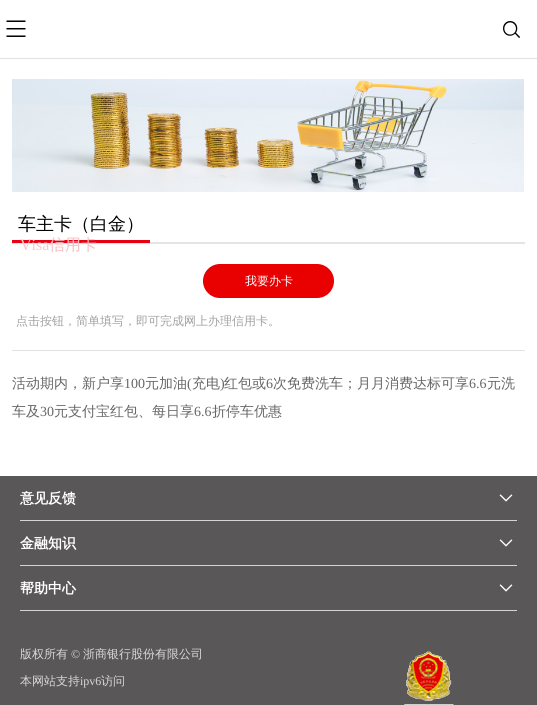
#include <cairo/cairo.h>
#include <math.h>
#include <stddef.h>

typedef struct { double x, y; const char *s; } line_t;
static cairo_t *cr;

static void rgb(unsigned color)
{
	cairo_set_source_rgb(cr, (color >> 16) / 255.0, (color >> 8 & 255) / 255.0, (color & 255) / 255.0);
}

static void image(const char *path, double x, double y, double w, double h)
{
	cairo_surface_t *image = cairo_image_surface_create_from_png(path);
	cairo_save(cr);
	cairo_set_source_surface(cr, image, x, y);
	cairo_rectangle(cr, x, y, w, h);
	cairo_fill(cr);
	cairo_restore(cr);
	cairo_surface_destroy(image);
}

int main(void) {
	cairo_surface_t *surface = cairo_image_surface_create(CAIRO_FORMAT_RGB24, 537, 705);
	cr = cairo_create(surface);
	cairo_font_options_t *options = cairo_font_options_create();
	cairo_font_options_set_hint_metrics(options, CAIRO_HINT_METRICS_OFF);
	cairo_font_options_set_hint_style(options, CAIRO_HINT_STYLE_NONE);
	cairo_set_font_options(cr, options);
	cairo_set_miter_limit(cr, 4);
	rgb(0xffffff);
	cairo_paint(cr);
	image("img/1.png", 12, 79, 512, 113);
	rgb(0xe4e4e4);
	cairo_rectangle(cr, 12, 242, 513, 2);
	cairo_fill(cr);
	rgb(0xe60012);
	cairo_rectangle(cr, 12, 240, 138, 3);
	cairo_fill(cr);
	image("img/2.png", 203, 264, 131, 34);
	rgb(0xe2e2e2);
	cairo_rectangle(cr, 12, 350, 513, 1);
	cairo_fill(cr);
	cairo_rectangle(cr, 0, 58, 537, 1);
	cairo_fill(cr);
	image("img/3.png", 6, 20, 20, 17);
	image("img/4.png", 503, 21, 17, 17);
	rgb(0x595757);
	cairo_rectangle(cr, 0, 476, 537, 229);
	cairo_fill(cr);
	rgb(0xd6d5d5);
	cairo_rectangle(cr, 20, 520, 497, 1);
	cairo_fill(cr);
	image("img/5.png", 499, 494, 14, 8);
	cairo_rectangle(cr, 20, 565, 497, 1);
	cairo_fill(cr);
	image("img/5.png", 499, 539, 14, 8);
	cairo_rectangle(cr, 20, 610, 497, 1);
	cairo_fill(cr);
	image("img/5.png", 499, 584, 14, 8);
	image("img/6.png", 404, 651, 50, 54);
	cairo_select_font_face(cr, "WenQuanYi Zen Hei Medium", CAIRO_FONT_SLANT_NORMAL, CAIRO_FONT_WEIGHT_NORMAL);
	cairo_set_font_size(cr, 18);
	rgb(0x000000);
	cairo_move_to(cr, 18, 230);
	cairo_show_text(cr, "车主卡（白金）");
	cairo_set_font_size(cr, 12);
	rgb(0xffffff);
	cairo_move_to(cr, 245, 285);
	cairo_show_text(cr, "我要办卡");
	rgb(0xa2a1a1);
	cairo_move_to(cr, 16, 325);
	cairo_show_text(cr, "点击按钮，简单填写，即可完成网上办理信用卡。");
	cairo_set_font_size(cr, 14);
	rgb(0x666666);
	cairo_move_to(cr, 12, 388);
	cairo_show_text(cr, "活动期内，新户享");
	cairo_select_font_face(cr, "Liberation Serif", CAIRO_FONT_SLANT_NORMAL, CAIRO_FONT_WEIGHT_NORMAL);
	cairo_move_to(cr, 124, 388);
	cairo_show_text(cr, "100");
	cairo_select_font_face(cr, "WenQuanYi Zen Hei Medium", CAIRO_FONT_SLANT_NORMAL, CAIRO_FONT_WEIGHT_NORMAL);
	cairo_move_to(cr, 145, 388);
	cairo_show_text(cr, "元加油");
	cairo_select_font_face(cr, "Liberation Serif", CAIRO_FONT_SLANT_NORMAL, CAIRO_FONT_WEIGHT_NORMAL);
	cairo_move_to(cr, 187, 388);
	cairo_show_text(cr, "(");
	cairo_select_font_face(cr, "WenQuanYi Zen Hei Medium", CAIRO_FONT_SLANT_NORMAL, CAIRO_FONT_WEIGHT_NORMAL);
	cairo_move_to(cr, 192, 388);
	cairo_show_text(cr, "充电");
	cairo_select_font_face(cr, "Liberation Serif", CAIRO_FONT_SLANT_NORMAL, CAIRO_FONT_WEIGHT_NORMAL);
	cairo_move_to(cr, 220, 388);
	cairo_show_text(cr, ")");
	cairo_select_font_face(cr, "WenQuanYi Zen Hei Medium", CAIRO_FONT_SLANT_NORMAL, CAIRO_FONT_WEIGHT_NORMAL);
	cairo_move_to(cr, 224, 388);
	cairo_show_text(cr, "红包或");
	cairo_select_font_face(cr, "Liberation Serif", CAIRO_FONT_SLANT_NORMAL, CAIRO_FONT_WEIGHT_NORMAL);
	cairo_move_to(cr, 266, 388);
	cairo_show_text(cr, "6");
	cairo_select_font_face(cr, "WenQuanYi Zen Hei Medium", CAIRO_FONT_SLANT_NORMAL, CAIRO_FONT_WEIGHT_NORMAL);
	cairo_move_to(cr, 273, 388);
	cairo_show_text(cr, "次免费洗车；月月消费达标可享");
	cairo_select_font_face(cr, "Liberation Serif", CAIRO_FONT_SLANT_NORMAL, CAIRO_FONT_WEIGHT_NORMAL);
	cairo_move_to(cr, 469, 388);
	cairo_show_text(cr, "6.6");
	cairo_select_font_face(cr, "WenQuanYi Zen Hei Medium", CAIRO_FONT_SLANT_NORMAL, CAIRO_FONT_WEIGHT_NORMAL);
	cairo_move_to(cr, 487, 388);
	cairo_show_text(cr, "元洗");
	cairo_move_to(cr, 12, 416);
	cairo_show_text(cr, "车及");
	cairo_select_font_face(cr, "Liberation Serif", CAIRO_FONT_SLANT_NORMAL, CAIRO_FONT_WEIGHT_NORMAL);
	cairo_move_to(cr, 40, 416);
	cairo_show_text(cr, "30");
	cairo_select_font_face(cr, "WenQuanYi Zen Hei Medium", CAIRO_FONT_SLANT_NORMAL, CAIRO_FONT_WEIGHT_NORMAL);
	cairo_move_to(cr, 54, 416);
	cairo_show_text(cr, "元支付宝红包、每日享");
	cairo_select_font_face(cr, "Liberation Serif", CAIRO_FONT_SLANT_NORMAL, CAIRO_FONT_WEIGHT_NORMAL);
	cairo_move_to(cr, 194, 416);
	cairo_show_text(cr, "6.6");
	cairo_select_font_face(cr, "WenQuanYi Zen Hei Medium", CAIRO_FONT_SLANT_NORMAL, CAIRO_FONT_WEIGHT_NORMAL);
	cairo_move_to(cr, 212, 416);
	cairo_show_text(cr, "折停车优惠");
	cairo_select_font_face(cr, "Liberation Serif", CAIRO_FONT_SLANT_NORMAL, CAIRO_FONT_WEIGHT_NORMAL);
	cairo_set_font_size(cr, 16);
	rgb(0xf7cace);
	cairo_move_to(cr, 20, 250);
	cairo_show_text(cr, "Visa");
	cairo_select_font_face(cr, "WenQuanYi Zen Hei Medium", CAIRO_FONT_SLANT_NORMAL, CAIRO_FONT_WEIGHT_NORMAL);
	rgb(0xf7c0c4);
	cairo_move_to(cr, 49, 250);
	cairo_show_text(cr, "信用卡");
	cairo_select_font_face(cr, "WenQuanYi Zen Hei", CAIRO_FONT_SLANT_NORMAL, CAIRO_FONT_WEIGHT_BOLD);
	cairo_set_font_size(cr, 14);
	rgb(0xffffff);
	{
		static const line_t items[] = {
			{20, 503, "意见反馈"},
			{20, 548, "金融知识"},
			{20, 593, "帮助中心"},
		};
		for (size_t i = 0; i < sizeof items / sizeof *items; i++) {
			cairo_move_to(cr, items[i].x, items[i].y);
			cairo_show_text(cr, items[i].s);
		}
	}
	cairo_select_font_face(cr, "WenQuanYi Zen Hei Medium", CAIRO_FONT_SLANT_NORMAL, CAIRO_FONT_WEIGHT_NORMAL);
	cairo_set_font_size(cr, 12);
	rgb(0xd9d9d9);
	cairo_move_to(cr, 20, 658);
	cairo_show_text(cr, "版权所有");
	cairo_select_font_face(cr, "Liberation Serif", CAIRO_FONT_SLANT_NORMAL, CAIRO_FONT_WEIGHT_NORMAL);
	cairo_move_to(cr, 71, 658);
	cairo_show_text(cr, "©");
	cairo_select_font_face(cr, "WenQuanYi Zen Hei Medium", CAIRO_FONT_SLANT_NORMAL, CAIRO_FONT_WEIGHT_NORMAL);
	cairo_move_to(cr, 83, 658);
	cairo_show_text(cr, "浙商银行股份有限公司");
	cairo_move_to(cr, 20, 685);
	cairo_show_text(cr, "本网站支持");
	cairo_select_font_face(cr, "Liberation Serif", CAIRO_FONT_SLANT_NORMAL, CAIRO_FONT_WEIGHT_NORMAL);
	cairo_move_to(cr, 80, 685);
	cairo_show_text(cr, "ipv6");
	cairo_select_font_face(cr, "WenQuanYi Zen Hei Medium", CAIRO_FONT_SLANT_NORMAL, CAIRO_FONT_WEIGHT_NORMAL);
	cairo_move_to(cr, 101, 685);
	cairo_show_text(cr, "访问");
	cairo_surface_write_to_png(surface, "page.png");
	cairo_font_options_destroy(options);
	cairo_destroy(cr);
	cairo_surface_destroy(surface);
	return 0;
}
